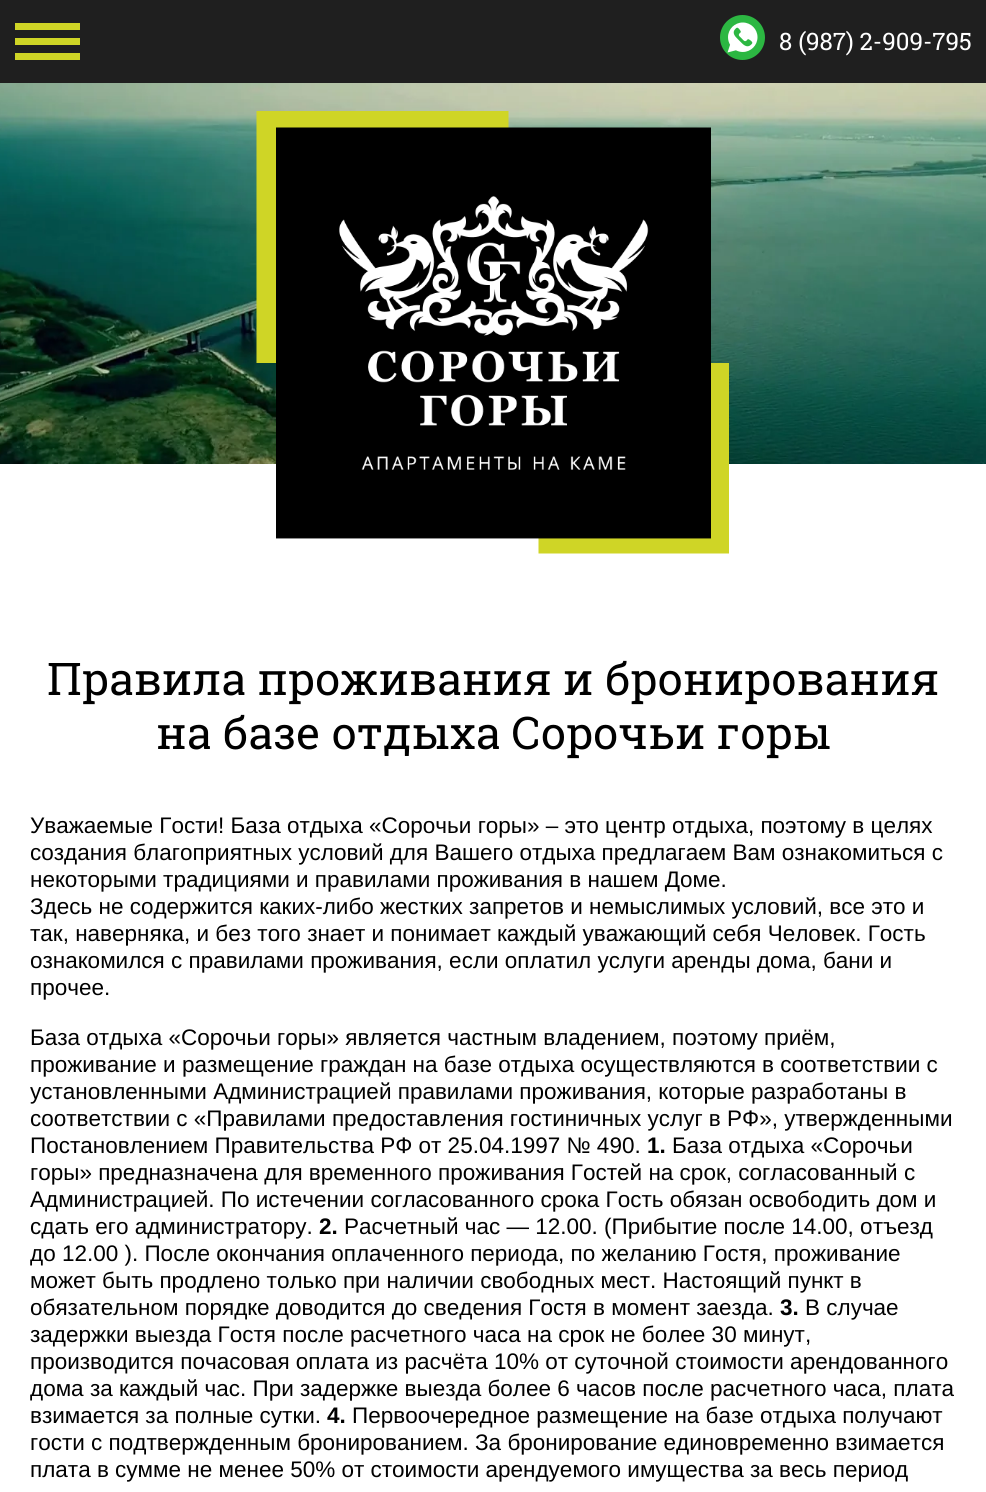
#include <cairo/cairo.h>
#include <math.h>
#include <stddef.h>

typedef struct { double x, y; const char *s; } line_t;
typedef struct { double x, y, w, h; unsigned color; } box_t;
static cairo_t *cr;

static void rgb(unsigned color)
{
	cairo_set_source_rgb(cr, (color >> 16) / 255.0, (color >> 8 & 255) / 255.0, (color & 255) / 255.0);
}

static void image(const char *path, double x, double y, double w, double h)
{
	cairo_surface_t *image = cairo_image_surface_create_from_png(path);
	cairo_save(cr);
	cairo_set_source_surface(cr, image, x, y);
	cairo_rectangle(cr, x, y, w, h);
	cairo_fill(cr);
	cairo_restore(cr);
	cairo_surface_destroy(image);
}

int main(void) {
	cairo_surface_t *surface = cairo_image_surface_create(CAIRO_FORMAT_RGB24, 986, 1492);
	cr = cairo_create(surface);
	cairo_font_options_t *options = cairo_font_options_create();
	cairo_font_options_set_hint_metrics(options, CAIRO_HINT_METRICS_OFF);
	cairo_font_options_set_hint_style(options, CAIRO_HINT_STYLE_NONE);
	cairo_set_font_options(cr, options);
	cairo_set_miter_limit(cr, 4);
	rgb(0xffffff);
	cairo_paint(cr);
	{
		static const box_t items[] = {
			{0, 0, 986, 83, 0x1f1f1f},
			{15, 23, 65, 7, 0xcfd526},
			{15, 38, 65, 7, 0xcfd526},
			{15, 53, 65, 7, 0xcfd526},
		};
		for (size_t i = 0; i < sizeof items / sizeof *items; i++) {
			rgb(items[i].color);
			cairo_rectangle(cr, items[i].x, items[i].y, items[i].w, items[i].h);
			cairo_fill(cr);
		}
	}
	image("img/1.png", 720, 15, 45, 45);
	image("img/2.png", 0, 83, 986, 381);
	image("img/3.png", 256, 111, 473, 443);
	image("img/4.png", 276, 127, 435, 412);
	cairo_select_font_face(cr, "Roboto Slab", CAIRO_FONT_SLANT_NORMAL, CAIRO_FONT_WEIGHT_NORMAL);
	cairo_set_font_size(cr, 24);
	rgb(0xffffff);
	cairo_move_to(cr, 779, 50);
	cairo_show_text(cr, "8 (987) 2-909-795");
	cairo_set_font_size(cr, 45);
	rgb(0x000000);
	cairo_move_to(cr, 47, 695);
	cairo_show_text(cr, "Правила проживания и бронирования");
	cairo_move_to(cr, 156, 749);
	cairo_show_text(cr, "на базе отдыха Сорочьи горы");
	cairo_select_font_face(cr, "Liberation Sans", CAIRO_FONT_SLANT_NORMAL, CAIRO_FONT_WEIGHT_NORMAL);
	cairo_set_font_size(cr, 22.5);
	{
		static const line_t items[] = {
			{30, 833, "Уважаемые Гости! База отдыха «Сорочьи горы» – это центр отдыха, поэтому в целях"},
			{30, 860, "создания благоприятных условий для Вашего отдыха предлагаем Вам ознакомиться с"},
			{30, 887, "некоторыми традициями и правилами проживания в нашем Доме."},
			{30, 914, "Здесь не содержится каких-либо жестких запретов и немыслимых условий, все это и"},
			{30, 941, "так, наверняка, и без того знает и понимает каждый уважающий себя Человек. Гость"},
			{30, 968, "ознакомился с правилами проживания, если оплатил услуги аренды дома, бани и"},
			{30, 995, "прочее."},
			{30, 1045, "База отдыха «Сорочьи горы» является частным владением, поэтому приём,"},
			{30, 1072, "проживание и размещение граждан на базе отдыха осуществляются в соответствии с"},
			{30, 1099, "установленными Администрацией правилами проживания, которые разработаны в"},
			{30, 1126, "соответствии с «Правилами предоставления гостиничных услуг в РФ», утвержденными"},
			{30, 1153, "Постановлением Правительства РФ от 25.04.1997 № 490."},
		};
		for (size_t i = 0; i < sizeof items / sizeof *items; i++) {
			cairo_move_to(cr, items[i].x, items[i].y);
			cairo_show_text(cr, items[i].s);
		}
	}
	cairo_select_font_face(cr, "Liberation Sans", CAIRO_FONT_SLANT_NORMAL, CAIRO_FONT_WEIGHT_BOLD);
	cairo_move_to(cr, 647, 1153);
	cairo_show_text(cr, "1.");
	cairo_select_font_face(cr, "Liberation Sans", CAIRO_FONT_SLANT_NORMAL, CAIRO_FONT_WEIGHT_NORMAL);
	{
		static const line_t items[] = {
			{672, 1153, "База отдыха «Сорочьи"},
			{30, 1180, "горы» предназначена для временного проживания Гостей на срок, согласованный с"},
			{30, 1207, "Администрацией. По истечении согласованного срока Гость обязан освободить дом и"},
			{30, 1234, "сдать его администратору."},
		};
		for (size_t i = 0; i < sizeof items / sizeof *items; i++) {
			cairo_move_to(cr, items[i].x, items[i].y);
			cairo_show_text(cr, items[i].s);
		}
	}
	cairo_select_font_face(cr, "Liberation Sans", CAIRO_FONT_SLANT_NORMAL, CAIRO_FONT_WEIGHT_BOLD);
	cairo_move_to(cr, 319, 1234);
	cairo_show_text(cr, "2.");
	cairo_select_font_face(cr, "Liberation Sans", CAIRO_FONT_SLANT_NORMAL, CAIRO_FONT_WEIGHT_NORMAL);
	{
		static const line_t items[] = {
			{344, 1234, "Расчетный час — 12.00. (Прибытие после 14.00, отъезд"},
			{30, 1261, "до 12.00 ). После окончания оплаченного периода, по желанию Гостя, проживание"},
			{30, 1288, "может быть продлено только при наличии свободных мест. Настоящий пункт в"},
			{30, 1315, "обязательном порядке доводится до сведения Гостя в момент заезда."},
		};
		for (size_t i = 0; i < sizeof items / sizeof *items; i++) {
			cairo_move_to(cr, items[i].x, items[i].y);
			cairo_show_text(cr, items[i].s);
		}
	}
	cairo_select_font_face(cr, "Liberation Sans", CAIRO_FONT_SLANT_NORMAL, CAIRO_FONT_WEIGHT_BOLD);
	cairo_move_to(cr, 780, 1315);
	cairo_show_text(cr, "3.");
	cairo_select_font_face(cr, "Liberation Sans", CAIRO_FONT_SLANT_NORMAL, CAIRO_FONT_WEIGHT_NORMAL);
	{
		static const line_t items[] = {
			{805, 1315, "В случае"},
			{30, 1342, "задержки выезда Гостя после расчетного часа на срок не более 30 минут,"},
			{30, 1369, "производится почасовая оплата из расчёта 10% от суточной стоимости арендованного"},
			{30, 1396, "дома за каждый час. При задержке выезда более 6 часов после расчетного часа, плата"},
			{30, 1423, "взимается за полные сутки."},
		};
		for (size_t i = 0; i < sizeof items / sizeof *items; i++) {
			cairo_move_to(cr, items[i].x, items[i].y);
			cairo_show_text(cr, items[i].s);
		}
	}
	cairo_select_font_face(cr, "Liberation Sans", CAIRO_FONT_SLANT_NORMAL, CAIRO_FONT_WEIGHT_BOLD);
	cairo_move_to(cr, 327, 1423);
	cairo_show_text(cr, "4.");
	cairo_select_font_face(cr, "Liberation Sans", CAIRO_FONT_SLANT_NORMAL, CAIRO_FONT_WEIGHT_NORMAL);
	{
		static const line_t items[] = {
			{352, 1423, "Первоочередное размещение на базе отдыха получают"},
			{30, 1450, "гости с подтвержденным бронированием. За бронирование единовременно взимается"},
			{30, 1477, "плата в сумме не менее 50% от стоимости арендуемого имущества за весь период"},
		};
		for (size_t i = 0; i < sizeof items / sizeof *items; i++) {
			cairo_move_to(cr, items[i].x, items[i].y);
			cairo_show_text(cr, items[i].s);
		}
	}
	cairo_surface_write_to_png(surface, "page.png");
	cairo_font_options_destroy(options);
	cairo_destroy(cr);
	cairo_surface_destroy(surface);
	return 0;
}
